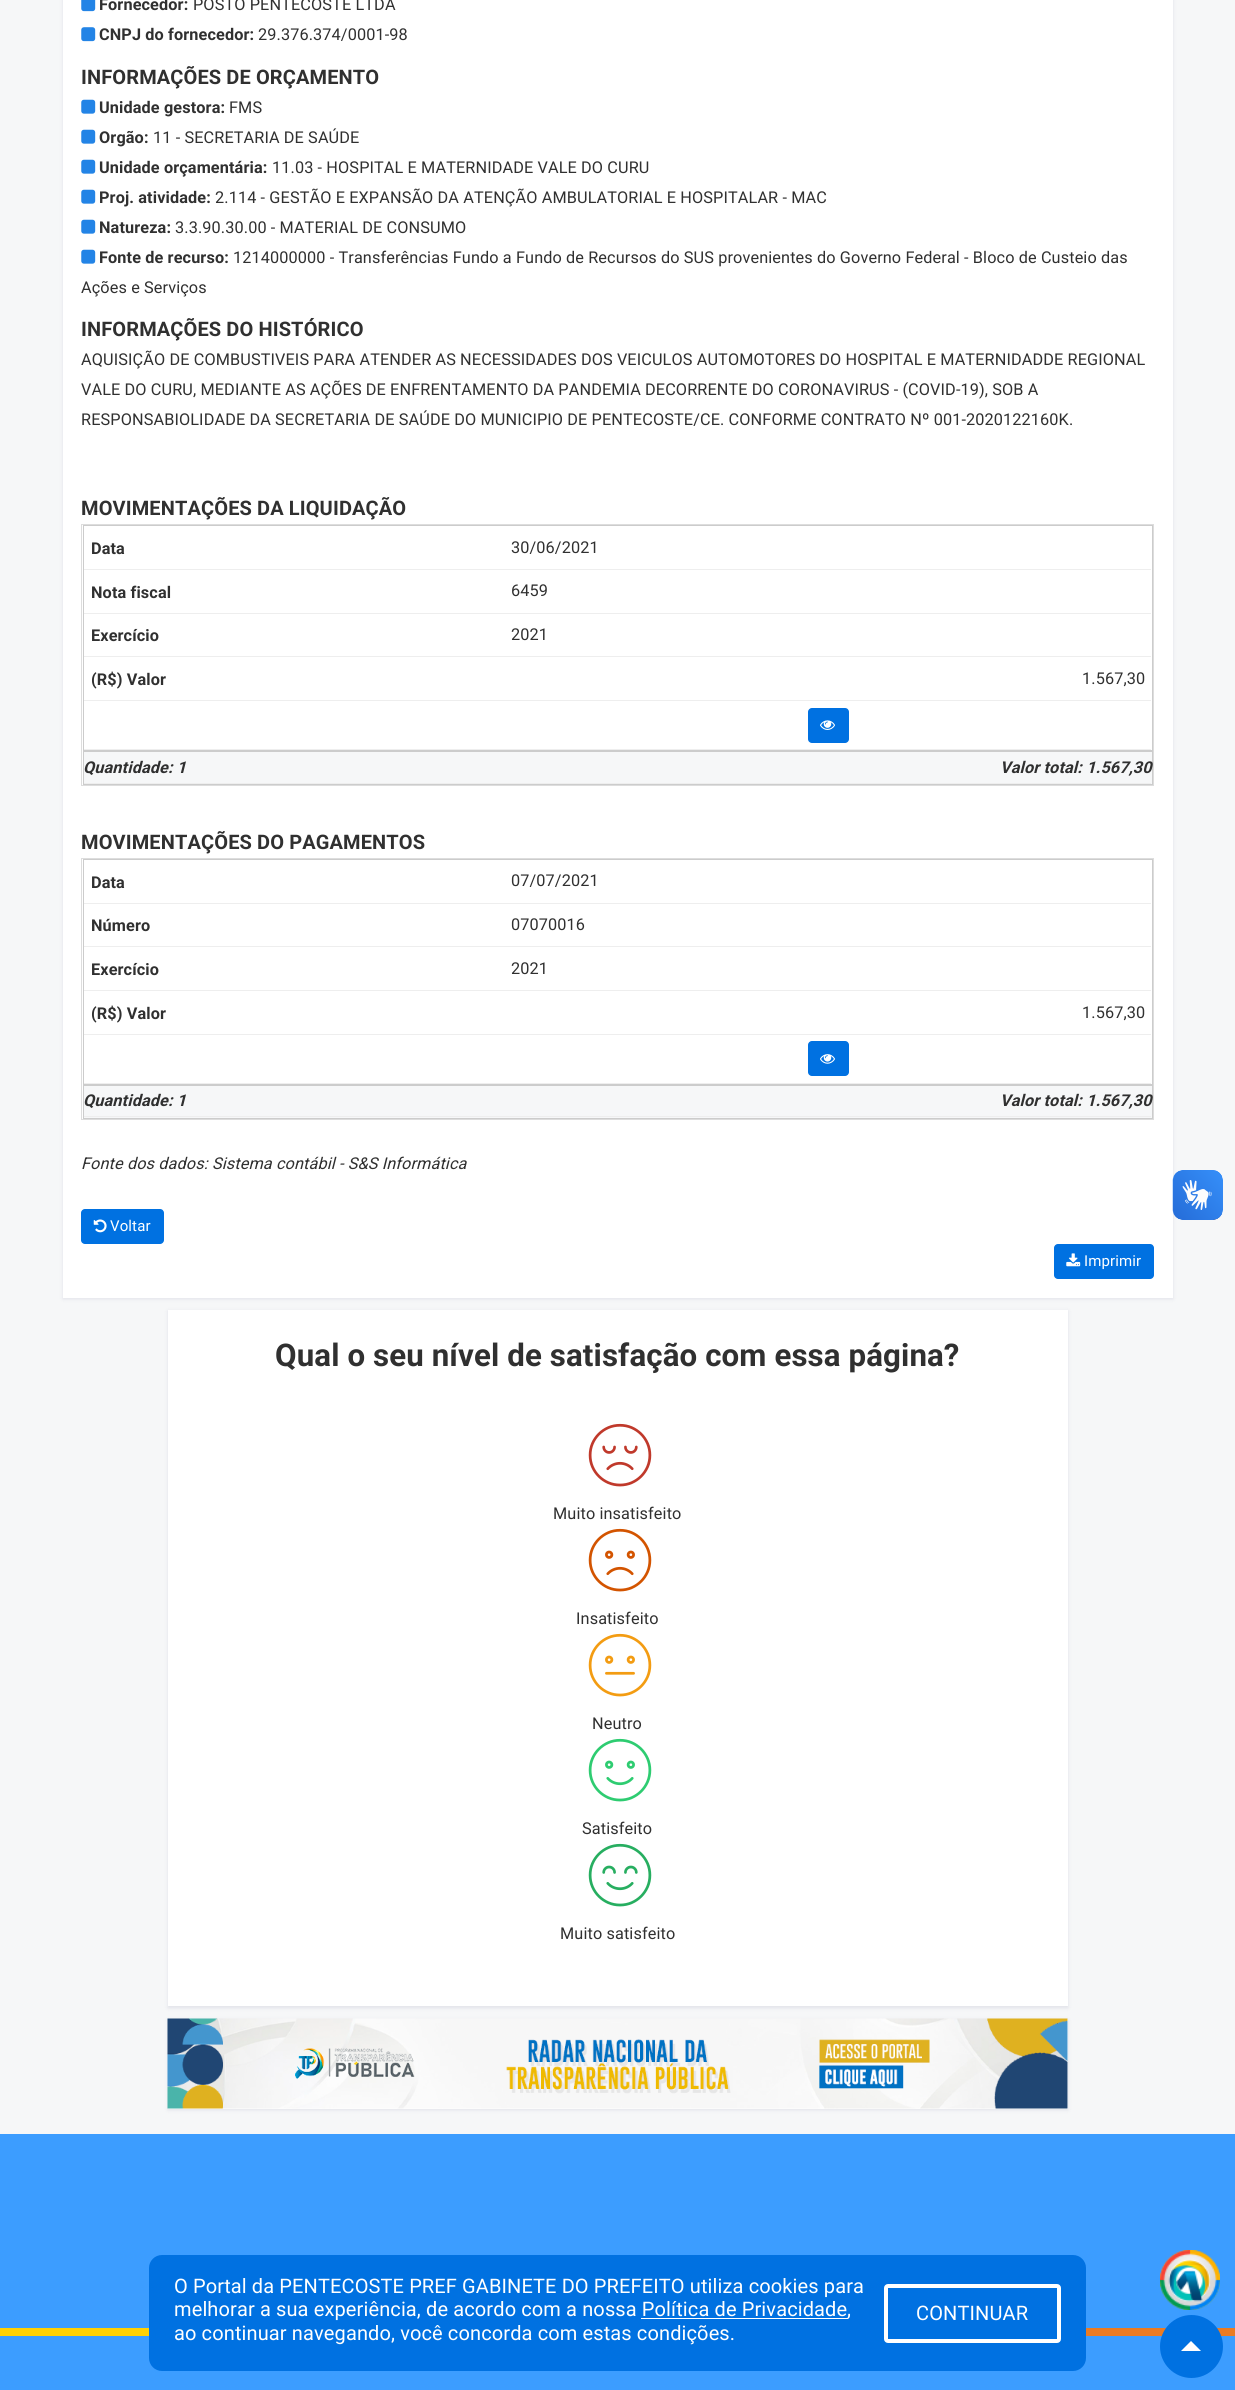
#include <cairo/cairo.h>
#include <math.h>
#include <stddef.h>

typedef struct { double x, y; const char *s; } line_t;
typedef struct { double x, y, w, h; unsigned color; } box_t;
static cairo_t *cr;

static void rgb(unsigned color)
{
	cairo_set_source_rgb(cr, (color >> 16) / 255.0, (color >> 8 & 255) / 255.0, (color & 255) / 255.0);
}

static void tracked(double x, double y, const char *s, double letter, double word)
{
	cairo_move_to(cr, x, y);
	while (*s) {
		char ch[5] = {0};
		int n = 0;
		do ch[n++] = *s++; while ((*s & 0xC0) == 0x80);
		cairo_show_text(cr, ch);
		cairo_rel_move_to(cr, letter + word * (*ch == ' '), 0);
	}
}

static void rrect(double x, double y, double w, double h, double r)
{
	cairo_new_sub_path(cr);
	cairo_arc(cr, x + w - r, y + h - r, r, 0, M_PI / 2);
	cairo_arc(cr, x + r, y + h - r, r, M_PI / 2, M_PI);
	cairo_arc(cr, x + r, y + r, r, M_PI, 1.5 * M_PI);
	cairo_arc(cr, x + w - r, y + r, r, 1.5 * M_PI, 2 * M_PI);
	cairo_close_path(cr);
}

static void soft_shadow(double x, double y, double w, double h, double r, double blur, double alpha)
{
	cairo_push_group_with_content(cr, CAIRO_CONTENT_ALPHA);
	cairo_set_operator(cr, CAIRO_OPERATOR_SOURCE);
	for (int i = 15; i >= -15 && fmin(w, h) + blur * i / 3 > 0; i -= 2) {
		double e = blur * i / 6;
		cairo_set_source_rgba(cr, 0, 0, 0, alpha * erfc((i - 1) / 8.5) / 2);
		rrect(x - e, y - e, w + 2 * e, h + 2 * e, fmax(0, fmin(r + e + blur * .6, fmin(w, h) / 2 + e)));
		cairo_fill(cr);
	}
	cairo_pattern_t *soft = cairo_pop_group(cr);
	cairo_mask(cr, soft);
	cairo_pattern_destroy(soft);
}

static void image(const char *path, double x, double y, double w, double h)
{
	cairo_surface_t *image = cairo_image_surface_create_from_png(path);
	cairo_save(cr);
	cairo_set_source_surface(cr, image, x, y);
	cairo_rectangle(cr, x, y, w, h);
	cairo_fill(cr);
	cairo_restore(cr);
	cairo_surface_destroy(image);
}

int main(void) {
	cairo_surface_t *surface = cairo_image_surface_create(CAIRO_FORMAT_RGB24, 1235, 2390);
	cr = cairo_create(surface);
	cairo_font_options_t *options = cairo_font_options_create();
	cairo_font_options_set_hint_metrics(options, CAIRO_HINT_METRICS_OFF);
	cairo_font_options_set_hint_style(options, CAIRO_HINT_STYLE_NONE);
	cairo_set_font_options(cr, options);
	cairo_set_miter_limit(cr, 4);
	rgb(0xf6f7f8);
	cairo_paint(cr);
	rgb(0x030047);
	soft_shadow(63, -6, 1110, 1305, 0, 2, 0.09);
	rgb(0xffffff);
	cairo_rectangle(cr, 63, 0, 1110, 1298);
	cairo_fill(cr);
	image("img/1.png", 81, 0, 15, 12);
	image("img/2.png", 81, 27, 15, 15);
	image("img/3.png", 81, 99, 15, 15);
	image("img/3.png", 81, 129, 15, 15);
	image("img/3.png", 81, 159, 15, 15);
	image("img/3.png", 81, 189, 15, 15);
	image("img/3.png", 81, 219, 15, 15);
	image("img/3.png", 81, 249, 15, 15);
	{
		static const box_t items[] = {
			{81, 524, 1073, 1, 0xdddddd},
			{1153, 524, 1, 262, 0xdddddd},
			{81, 785, 1073, 1, 0xdddddd},
			{81, 524, 1, 262, 0xdddddd},
		};
		for (size_t i = 0; i < sizeof items / sizeof *items; i++) {
			rgb(items[i].color);
			cairo_rectangle(cr, items[i].x, items[i].y, items[i].w, items[i].h);
			cairo_fill(cr);
		}
	}
	cairo_rectangle(cr, 83.5, 525.5, 1069, 225);
	rgb(0xcccccc);
	cairo_set_line_width(cr, 1);
	cairo_stroke(cr);
	{
		static const box_t items[] = {
			{84, 569, 1067, 1, 0xeeeeee},
			{84, 613, 1067, 1, 0xeeeeee},
			{84, 656, 1067, 1, 0xeeeeee},
			{84, 700, 1067, 1, 0xeeeeee},
			{84, 749, 1067, 1, 0xeeeeee},
		};
		for (size_t i = 0; i < sizeof items / sizeof *items; i++) {
			rgb(items[i].color);
			cairo_rectangle(cr, items[i].x, items[i].y, items[i].w, items[i].h);
			cairo_fill(cr);
		}
	}
	rgb(0x0071e1);
	rrect(808, 708, 41, 35, 4);
	cairo_fill(cr);
	image("img/4.png", 820, 720, 15, 10);
	rgb(0xf6f7f8);
	cairo_rectangle(cr, 83.5, 751.5, 1069, 33);
	cairo_fill_preserve(cr);
	rgb(0xcccccc);
	cairo_stroke(cr);
	{
		static const box_t items[] = {
			{84, 783, 1067, 1, 0xeeeeee},
			{81, 858, 1073, 1, 0xdddddd},
			{1153, 858, 1, 262, 0xdddddd},
			{81, 1119, 1073, 1, 0xdddddd},
			{81, 858, 1, 262, 0xdddddd},
		};
		for (size_t i = 0; i < sizeof items / sizeof *items; i++) {
			rgb(items[i].color);
			cairo_rectangle(cr, items[i].x, items[i].y, items[i].w, items[i].h);
			cairo_fill(cr);
		}
	}
	cairo_rectangle(cr, 83.5, 859.5, 1069, 225);
	rgb(0xcccccc);
	cairo_stroke(cr);
	{
		static const box_t items[] = {
			{84, 903, 1067, 1, 0xeeeeee},
			{84, 946, 1067, 1, 0xeeeeee},
			{84, 990, 1067, 1, 0xeeeeee},
			{84, 1034, 1067, 1, 0xeeeeee},
			{84, 1083, 1067, 1, 0xeeeeee},
		};
		for (size_t i = 0; i < sizeof items / sizeof *items; i++) {
			rgb(items[i].color);
			cairo_rectangle(cr, items[i].x, items[i].y, items[i].w, items[i].h);
			cairo_fill(cr);
		}
	}
	rgb(0x0071e1);
	rrect(808, 1041, 41, 35, 4);
	cairo_fill(cr);
	image("img/5.png", 820, 1054, 15, 10);
	rgb(0xf6f7f8);
	cairo_rectangle(cr, 83.5, 1085.5, 1069, 33);
	cairo_fill_preserve(cr);
	rgb(0xcccccc);
	cairo_stroke(cr);
	rgb(0xeeeeee);
	cairo_rectangle(cr, 84, 1116, 1067, 1);
	cairo_fill(cr);
	rgb(0x0071e1);
	rrect(81, 1209, 83, 35, 4);
	cairo_fill(cr);
	image("img/6.png", 93, 1219, 14, 14);
	rrect(1054, 1244, 100, 35, 4);
	cairo_fill(cr);
	image("img/7.png", 1066, 1253, 15, 14);
	image("img/8.png", 1172, 1170, 51, 50);
	image("img/9.png", 1173, 1170, 50, 50);
	rgb(0x030047);
	soft_shadow(168, 1311, 900, 697, 0, 2, 0.09);
	rgb(0xffffff);
	cairo_rectangle(cr, 168, 1310, 900, 696);
	cairo_fill(cr);
	image("img/10.png", 588, 1423, 64, 64);
	image("img/11.png", 588, 1528, 64, 64);
	image("img/12.png", 588, 1633, 64, 64);
	image("img/13.png", 588, 1738, 64, 64);
	image("img/14.png", 588, 1843, 64, 64);
	rgb(0x030047);
	soft_shadow(168, 2020, 900, 90, 0, 2, 0.09);
	rgb(0xffffff);
	cairo_rectangle(cr, 168, 2019, 900, 90);
	cairo_fill(cr);
	image("img/15.png", 167, 2018, 901, 91);
	{
		static const box_t items[] = {
			{0, 2134, 1235, 256, 0x3c9dff},
			{0, 2328, 149, 8, 0xffd103},
			{1086, 2328, 149, 8, 0xeb7b22},
		};
		for (size_t i = 0; i < sizeof items / sizeof *items; i++) {
			rgb(items[i].color);
			cairo_rectangle(cr, items[i].x, items[i].y, items[i].w, items[i].h);
			cairo_fill(cr);
		}
	}
	rgb(0x0071e1);
	rrect(149, 2255, 937, 116, 13);
	cairo_fill(cr);
	rgb(0xffffff);
	cairo_rectangle(cr, 641, 2318, 207, 1);
	cairo_fill(cr);
	rrect(886, 2286, 173, 55, 2);
	cairo_set_line_width(cr, 4);
	cairo_stroke(cr);
	image("img/16.png", 1160, 2250, 60, 60);
	rgb(0x0071e1);
	cairo_arc(cr, 1191.5, 2346.5, 31.5, 0, 2 * M_PI);
	cairo_fill(cr);
	rgb(0xffffff);
	cairo_new_path(cr);
	cairo_move_to(cr, 1201, 2351);
	cairo_line_to(cr, 1181, 2351);
	cairo_line_to(cr, 1191, 2341);
	cairo_close_path(cr);
	cairo_fill(cr);
	cairo_select_font_face(cr, "Roboto", CAIRO_FONT_SLANT_NORMAL, CAIRO_FONT_WEIGHT_BOLD);
	cairo_set_font_size(cr, 16.25);
	rgb(0x303030);
	tracked(99, 10, "Fornecedor:", 0.12, 0);
	cairo_select_font_face(cr, "Roboto", CAIRO_FONT_SLANT_NORMAL, CAIRO_FONT_WEIGHT_NORMAL);
	tracked(193, 10, "POSTO PENTECOSTE LTDA", 0.12, 0);
	cairo_select_font_face(cr, "Roboto", CAIRO_FONT_SLANT_NORMAL, CAIRO_FONT_WEIGHT_BOLD);
	tracked(99, 40, "CNPJ do fornecedor:", 0.12, 0);
	cairo_select_font_face(cr, "Roboto", CAIRO_FONT_SLANT_NORMAL, CAIRO_FONT_WEIGHT_NORMAL);
	tracked(258, 40, "29.376.374/0001-98", 0.12, 0);
	cairo_select_font_face(cr, "Roboto", CAIRO_FONT_SLANT_NORMAL, CAIRO_FONT_WEIGHT_BOLD);
	cairo_set_font_size(cr, 20);
	tracked(81, 84, "INFORMAÇÕES DE ORÇAMENTO", 0.12, 0);
	cairo_set_font_size(cr, 16.25);
	tracked(99, 113, "Unidade gestora:", 0.12, 0);
	cairo_select_font_face(cr, "Roboto", CAIRO_FONT_SLANT_NORMAL, CAIRO_FONT_WEIGHT_NORMAL);
	tracked(229, 113, "FMS", 0.12, 0);
	cairo_select_font_face(cr, "Roboto", CAIRO_FONT_SLANT_NORMAL, CAIRO_FONT_WEIGHT_BOLD);
	tracked(99, 143, "Orgão:", 0.12, 0);
	cairo_select_font_face(cr, "Roboto", CAIRO_FONT_SLANT_NORMAL, CAIRO_FONT_WEIGHT_NORMAL);
	tracked(153, 143, "11 - SECRETARIA DE SAÚDE", 0.12, 0);
	cairo_select_font_face(cr, "Roboto", CAIRO_FONT_SLANT_NORMAL, CAIRO_FONT_WEIGHT_BOLD);
	tracked(99, 173, "Unidade orçamentária:", 0.12, 0);
	cairo_select_font_face(cr, "Roboto", CAIRO_FONT_SLANT_NORMAL, CAIRO_FONT_WEIGHT_NORMAL);
	tracked(272, 173, "11.03 - HOSPITAL E MATERNIDADE VALE DO CURU", 0.12, 0);
	cairo_select_font_face(cr, "Roboto", CAIRO_FONT_SLANT_NORMAL, CAIRO_FONT_WEIGHT_BOLD);
	tracked(99, 203, "Proj. atividade:", 0.12, 0);
	cairo_select_font_face(cr, "Roboto", CAIRO_FONT_SLANT_NORMAL, CAIRO_FONT_WEIGHT_NORMAL);
	tracked(215, 203, "2.114 - GESTÃO E EXPANSÃO DA ATENÇÃO AMBULATORIAL E HOSPITALAR - MAC", 0.12, 0);
	cairo_select_font_face(cr, "Roboto", CAIRO_FONT_SLANT_NORMAL, CAIRO_FONT_WEIGHT_BOLD);
	tracked(99, 233, "Natureza:", 0.12, 0);
	cairo_select_font_face(cr, "Roboto", CAIRO_FONT_SLANT_NORMAL, CAIRO_FONT_WEIGHT_NORMAL);
	tracked(175, 233, "3.3.90.30.00 - MATERIAL DE CONSUMO", 0.12, 0);
	cairo_select_font_face(cr, "Roboto", CAIRO_FONT_SLANT_NORMAL, CAIRO_FONT_WEIGHT_BOLD);
	tracked(99, 263, "Fonte de recurso:", 0.12, 0);
	cairo_select_font_face(cr, "Roboto", CAIRO_FONT_SLANT_NORMAL, CAIRO_FONT_WEIGHT_NORMAL);
	tracked(233, 263, "1214000000 - Transferências Fundo a Fundo de Recursos do SUS provenientes do Governo Federal - Bloco de Custeio das", 0.12, 0);
	tracked(81, 293, "Ações e Serviços", 0.12, 0);
	cairo_select_font_face(cr, "Roboto", CAIRO_FONT_SLANT_NORMAL, CAIRO_FONT_WEIGHT_BOLD);
	cairo_set_font_size(cr, 20);
	tracked(81, 336, "INFORMAÇÕES DO HISTÓRICO", 0.12, 0);
	cairo_select_font_face(cr, "Roboto", CAIRO_FONT_SLANT_NORMAL, CAIRO_FONT_WEIGHT_NORMAL);
	cairo_set_font_size(cr, 16.25);
	{
		static const line_t items[] = {
			{81, 365, "AQUISIÇÃO DE COMBUSTIVEIS PARA ATENDER AS NECESSIDADES DOS VEICULOS AUTOMOTORES DO HOSPITAL E MATERNIDADDE REGIONAL"},
			{81, 395, "VALE DO CURU, MEDIANTE AS AÇÕES DE ENFRENTAMENTO DA PANDEMIA DECORRENTE DO CORONAVIRUS - (COVID-19), SOB A"},
			{81, 425, "RESPONSABIOLIDADE DA SECRETARIA DE SAÚDE DO MUNICIPIO DE PENTECOSTE/CE. CONFORME CONTRATO Nº 001-2020122160K."},
		};
		for (size_t i = 0; i < sizeof items / sizeof *items; i++) {
			tracked(items[i].x, items[i].y, items[i].s, 0.12, 0);
		}
	}
	cairo_select_font_face(cr, "Roboto", CAIRO_FONT_SLANT_NORMAL, CAIRO_FONT_WEIGHT_BOLD);
	cairo_set_font_size(cr, 20);
	tracked(81, 515, "MOVIMENTAÇÕES DA LIQUIDAÇÃO", 0.12, 0);
	cairo_set_font_size(cr, 16.25);
	tracked(91, 554, "Data", 0.12, 0);
	cairo_select_font_face(cr, "Roboto", CAIRO_FONT_SLANT_NORMAL, CAIRO_FONT_WEIGHT_NORMAL);
	tracked(511, 553, "30/06/2021", 0.12, 0);
	cairo_select_font_face(cr, "Roboto", CAIRO_FONT_SLANT_NORMAL, CAIRO_FONT_WEIGHT_BOLD);
	tracked(91, 598, "Nota fiscal", 0.12, 0);
	cairo_select_font_face(cr, "Roboto", CAIRO_FONT_SLANT_NORMAL, CAIRO_FONT_WEIGHT_NORMAL);
	tracked(511, 596, "6459", 0.12, 0);
	cairo_select_font_face(cr, "Roboto", CAIRO_FONT_SLANT_NORMAL, CAIRO_FONT_WEIGHT_BOLD);
	tracked(91, 641, "Exercício", 0.12, 0);
	cairo_select_font_face(cr, "Roboto", CAIRO_FONT_SLANT_NORMAL, CAIRO_FONT_WEIGHT_NORMAL);
	tracked(511, 640, "2021", 0.12, 0);
	cairo_select_font_face(cr, "Roboto", CAIRO_FONT_SLANT_NORMAL, CAIRO_FONT_WEIGHT_BOLD);
	tracked(91, 685, "(R$) Valor", 0.12, 0);
	cairo_select_font_face(cr, "Roboto", CAIRO_FONT_SLANT_NORMAL, CAIRO_FONT_WEIGHT_NORMAL);
	tracked(1082, 684, "1.567,30", 0.12, 0);
	cairo_select_font_face(cr, "Roboto", CAIRO_FONT_SLANT_ITALIC, CAIRO_FONT_WEIGHT_BOLD);
	tracked(83, 773, "Quantidade: 1", 0.12, 0);
	tracked(1000, 773, "Valor total: 1.567,30", 0.12, 0);
	cairo_select_font_face(cr, "Roboto", CAIRO_FONT_SLANT_NORMAL, CAIRO_FONT_WEIGHT_BOLD);
	cairo_set_font_size(cr, 20);
	tracked(81, 849, "MOVIMENTAÇÕES DO PAGAMENTOS", 0.12, 0);
	cairo_set_font_size(cr, 16.25);
	tracked(91, 888, "Data", 0.12, 0);
	cairo_select_font_face(cr, "Roboto", CAIRO_FONT_SLANT_NORMAL, CAIRO_FONT_WEIGHT_NORMAL);
	tracked(511, 886, "07/07/2021", 0.12, 0);
	cairo_select_font_face(cr, "Roboto", CAIRO_FONT_SLANT_NORMAL, CAIRO_FONT_WEIGHT_BOLD);
	tracked(91, 931, "Número", 0.12, 0);
	cairo_select_font_face(cr, "Roboto", CAIRO_FONT_SLANT_NORMAL, CAIRO_FONT_WEIGHT_NORMAL);
	tracked(511, 930, "07070016", 0.12, 0);
	cairo_select_font_face(cr, "Roboto", CAIRO_FONT_SLANT_NORMAL, CAIRO_FONT_WEIGHT_BOLD);
	tracked(91, 975, "Exercício", 0.12, 0);
	cairo_select_font_face(cr, "Roboto", CAIRO_FONT_SLANT_NORMAL, CAIRO_FONT_WEIGHT_NORMAL);
	tracked(511, 974, "2021", 0.12, 0);
	cairo_select_font_face(cr, "Roboto", CAIRO_FONT_SLANT_NORMAL, CAIRO_FONT_WEIGHT_BOLD);
	tracked(91, 1019, "(R$) Valor", 0.12, 0);
	cairo_select_font_face(cr, "Roboto", CAIRO_FONT_SLANT_NORMAL, CAIRO_FONT_WEIGHT_NORMAL);
	tracked(1082, 1018, "1.567,30", 0.12, 0);
	cairo_select_font_face(cr, "Roboto", CAIRO_FONT_SLANT_ITALIC, CAIRO_FONT_WEIGHT_BOLD);
	tracked(83, 1106, "Quantidade: 1", 0.12, 0);
	tracked(1000, 1106, "Valor total: 1.567,30", 0.12, 0);
	cairo_select_font_face(cr, "Roboto", CAIRO_FONT_SLANT_ITALIC, CAIRO_FONT_WEIGHT_NORMAL);
	tracked(81, 1169, "Fonte dos dados: Sistema contábil - S&S Informática", 0.12, 0);
	cairo_select_font_face(cr, "Roboto", CAIRO_FONT_SLANT_NORMAL, CAIRO_FONT_WEIGHT_NORMAL);
	cairo_set_font_size(cr, 15);
	rgb(0xffffff);
	tracked(110, 1231, "Voltar", 0.12, 0);
	tracked(1084, 1266, "Imprimir", 0.12, 0);
	cairo_select_font_face(cr, "Roboto", CAIRO_FONT_SLANT_NORMAL, CAIRO_FONT_WEIGHT_BOLD);
	cairo_set_font_size(cr, 31.25);
	rgb(0x303030);
	tracked(275, 1366, "Qual o seu nível de satisfação com essa página?", 0.12, 0);
	cairo_select_font_face(cr, "Roboto", CAIRO_FONT_SLANT_NORMAL, CAIRO_FONT_WEIGHT_NORMAL);
	cairo_set_font_size(cr, 16.25);
	{
		static const line_t items[] = {
			{553, 1519, "Muito insatisfeito"},
			{576, 1624, "Insatisfeito"},
			{592, 1729, "Neutro"},
			{582, 1834, "Satisfeito"},
			{560, 1939, "Muito satisfeito"},
		};
		for (size_t i = 0; i < sizeof items / sizeof *items; i++) {
			tracked(items[i].x, items[i].y, items[i].s, 0.12, 0);
		}
	}
	cairo_set_font_size(cr, 20);
	rgb(0xffffff);
	{
		static const line_t items[] = {
			{174, 2293, "O Portal da PENTECOSTE PREF GABINETE DO PREFEITO utiliza cookies para"},
			{174, 2316, "melhorar a sua experiência, de acordo com a nossa Política de Privacidade"},
			{847, 2316, ","},
			{174, 2340, "ao continuar navegando, você concorda com estas condições."},
			{916, 2320, "CONTINUAR"},
		};
		for (size_t i = 0; i < sizeof items / sizeof *items; i++) {
			tracked(items[i].x, items[i].y, items[i].s, 0.12, 0);
		}
	}
	cairo_surface_write_to_png(surface, "page.png");
	cairo_font_options_destroy(options);
	cairo_destroy(cr);
	cairo_surface_destroy(surface);
	return 0;
}
